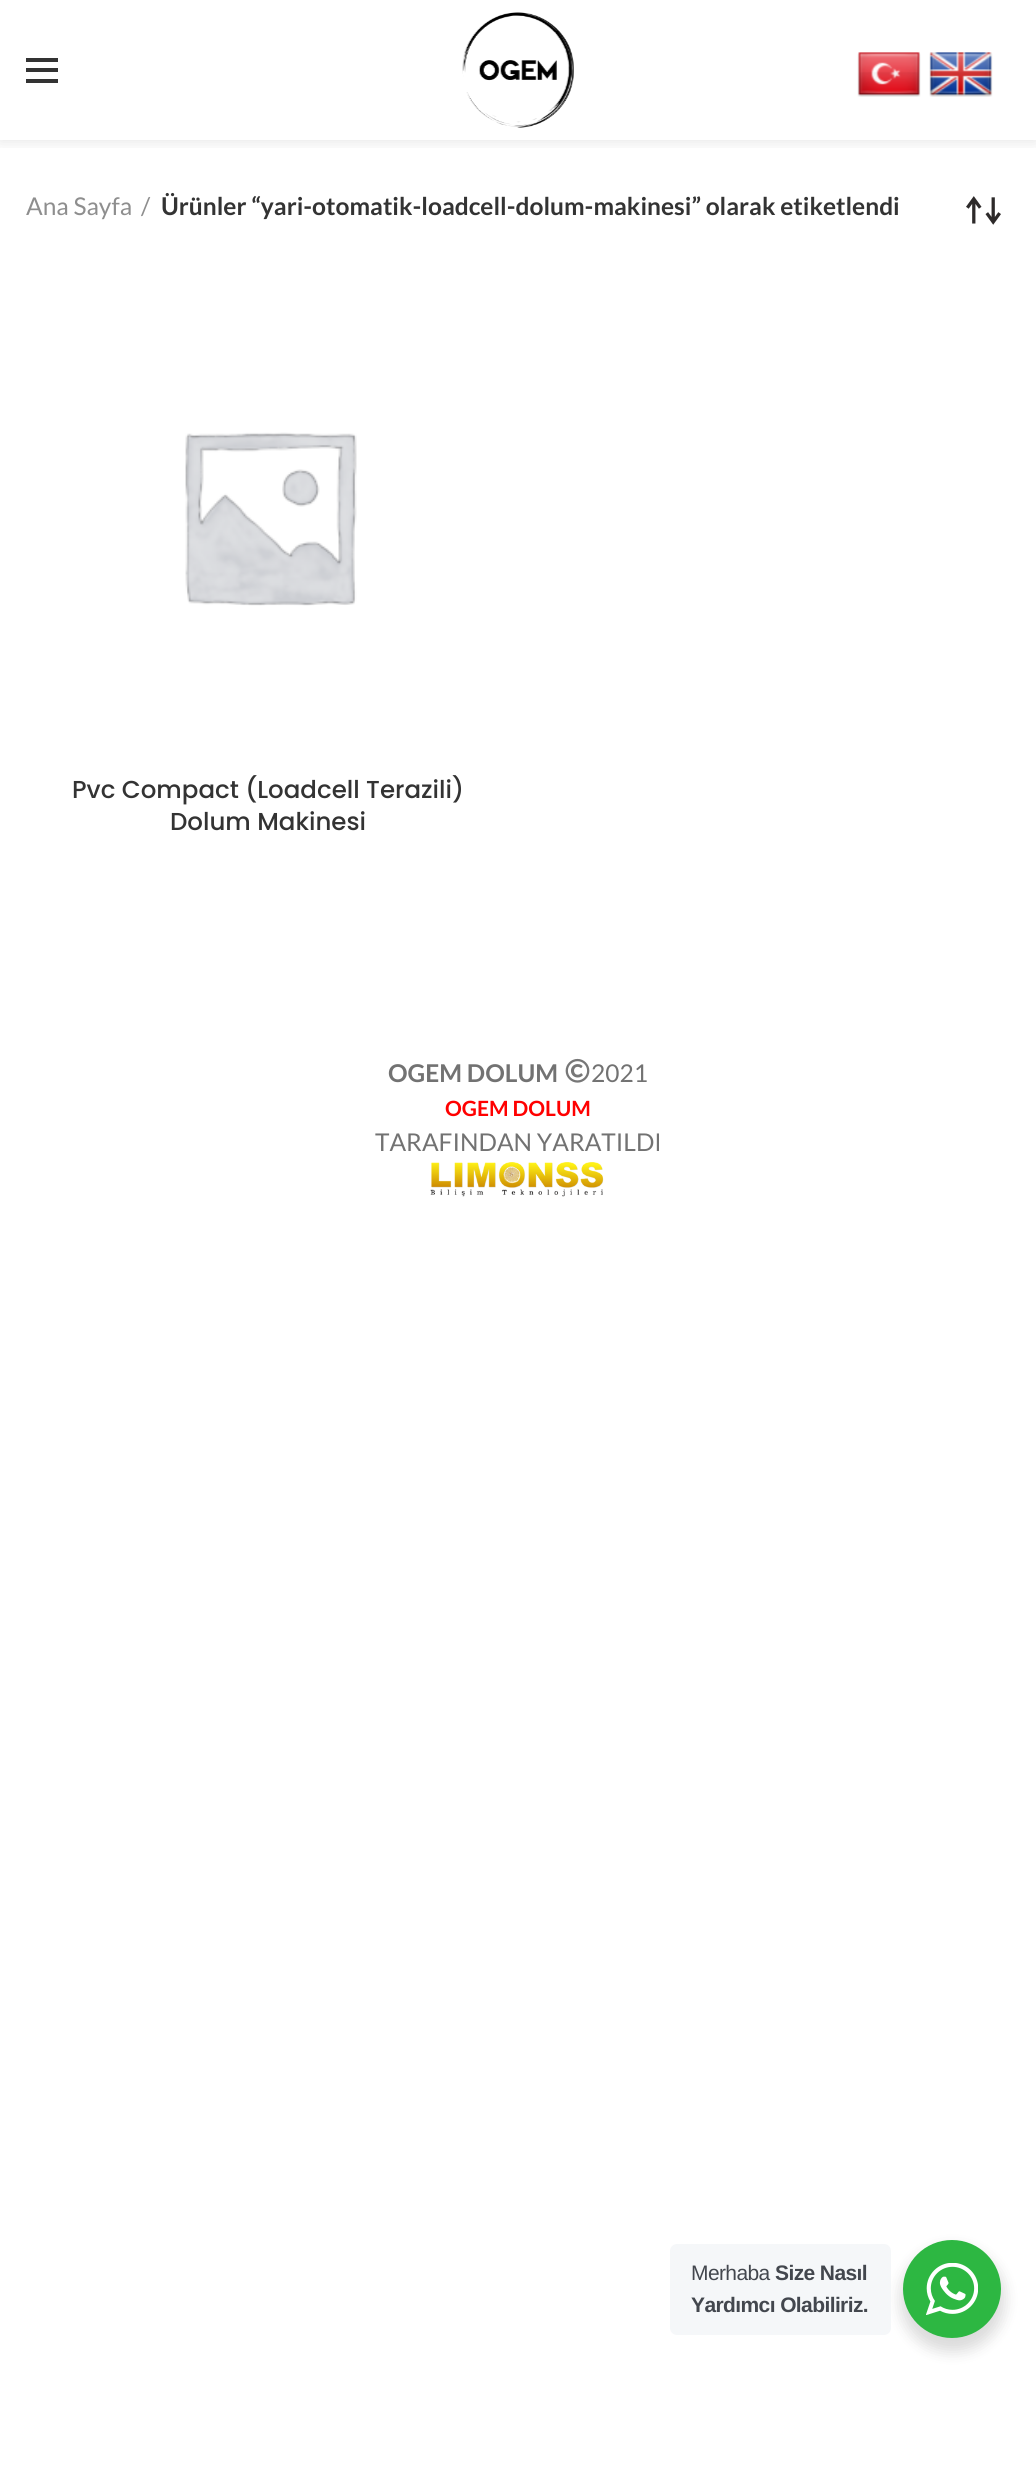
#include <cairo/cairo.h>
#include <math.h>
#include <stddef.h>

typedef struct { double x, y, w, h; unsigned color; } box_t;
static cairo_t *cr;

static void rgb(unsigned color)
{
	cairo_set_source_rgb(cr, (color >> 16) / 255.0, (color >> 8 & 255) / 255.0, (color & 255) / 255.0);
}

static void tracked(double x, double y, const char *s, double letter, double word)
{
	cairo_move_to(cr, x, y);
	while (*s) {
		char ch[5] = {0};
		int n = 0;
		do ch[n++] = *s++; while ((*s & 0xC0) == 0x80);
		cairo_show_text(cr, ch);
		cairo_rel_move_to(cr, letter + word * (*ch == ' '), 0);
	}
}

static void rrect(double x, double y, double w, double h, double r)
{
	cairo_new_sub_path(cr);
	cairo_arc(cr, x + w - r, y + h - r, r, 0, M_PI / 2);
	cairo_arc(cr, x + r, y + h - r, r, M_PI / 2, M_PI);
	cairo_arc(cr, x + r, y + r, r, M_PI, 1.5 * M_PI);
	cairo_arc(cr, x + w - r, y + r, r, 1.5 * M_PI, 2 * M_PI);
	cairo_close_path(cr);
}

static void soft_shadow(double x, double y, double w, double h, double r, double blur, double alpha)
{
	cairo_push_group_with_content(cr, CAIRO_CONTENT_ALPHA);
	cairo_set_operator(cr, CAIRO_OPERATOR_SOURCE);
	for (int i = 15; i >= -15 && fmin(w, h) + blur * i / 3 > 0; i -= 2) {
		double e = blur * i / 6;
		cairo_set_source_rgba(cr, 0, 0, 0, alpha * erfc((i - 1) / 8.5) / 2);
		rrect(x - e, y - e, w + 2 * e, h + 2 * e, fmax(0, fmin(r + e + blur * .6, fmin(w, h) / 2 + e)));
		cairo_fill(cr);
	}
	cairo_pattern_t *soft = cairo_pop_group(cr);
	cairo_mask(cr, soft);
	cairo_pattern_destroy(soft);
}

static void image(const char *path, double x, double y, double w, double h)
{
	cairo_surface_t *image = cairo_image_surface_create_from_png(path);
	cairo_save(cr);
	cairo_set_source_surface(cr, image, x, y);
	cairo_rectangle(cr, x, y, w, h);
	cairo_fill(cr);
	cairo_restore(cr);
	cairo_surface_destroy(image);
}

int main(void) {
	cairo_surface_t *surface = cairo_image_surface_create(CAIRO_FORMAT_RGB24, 1036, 2491);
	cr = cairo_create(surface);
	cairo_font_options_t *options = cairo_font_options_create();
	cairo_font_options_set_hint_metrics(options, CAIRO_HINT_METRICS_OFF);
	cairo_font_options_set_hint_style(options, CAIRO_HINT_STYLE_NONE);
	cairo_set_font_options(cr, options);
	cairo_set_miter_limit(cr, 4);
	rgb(0xffffff);
	cairo_paint(cr);
	cairo_save(cr);
	cairo_rectangle(cr, 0, 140, 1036, 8);
	cairo_clip(cr);
	rgb(0x000000);
	soft_shadow(0, 2, 1036, 140, 0, 7, 0.1);
	cairo_restore(cr);
	{
		static const box_t items[] = {
			{26, 68, 32, 4, 0x333333},
			{26, 58, 32, 4, 0x333333},
			{26, 79, 32, 4, 0x333333},
		};
		for (size_t i = 0; i < sizeof items / sizeof *items; i++) {
			rgb(items[i].color);
			cairo_rectangle(cr, items[i].x, items[i].y, items[i].w, items[i].h);
			cairo_fill(cr);
		}
	}
	image("img/1.png", 462, 12, 112, 116);
	image("img/2.png", 857, 52, 64, 45);
	image("img/3.png", 929, 52, 64, 45);
	image("img/4.png", 966, 196, 35, 29);
	image("img/5.png", 185, 432, 172, 174);
	image("img/6.png", 565, 1058, 25, 25);
	image("img/7.png", 430, 1162, 174, 35);
	rgb(0x000000);
	soft_shadow(900, 2247, 105, 105, 52.5, 7, 0.14);
	rgb(0xf5f7f9);
	rrect(670, 2244, 221, 91, 7);
	cairo_fill(cr);
	rgb(0x2db742);
	cairo_arc(cr, 952, 2289, 49, 0, 2 * M_PI);
	cairo_fill(cr);
	image("img/8.png", 926, 2263, 52, 52);
	cairo_select_font_face(cr, "Lato", CAIRO_FONT_SLANT_NORMAL, CAIRO_FONT_WEIGHT_NORMAL);
	cairo_set_font_size(cr, 24.5);
	rgb(0x8e8e8e);
	cairo_move_to(cr, 26, 215);
	cairo_show_text(cr, "Ana Sayfa");
	cairo_move_to(cr, 141, 215);
	cairo_show_text(cr, "/");
	cairo_select_font_face(cr, "Lato", CAIRO_FONT_SLANT_NORMAL, CAIRO_FONT_WEIGHT_BOLD);
	rgb(0x333333);
	cairo_move_to(cr, 161, 215);
	cairo_show_text(cr, "Ürünler “yari-otomatik-loadcell-dolum-makinesi” olarak etiketlendi");
	cairo_select_font_face(cr, "Poppins Medium", CAIRO_FONT_SLANT_NORMAL, CAIRO_FONT_WEIGHT_NORMAL);
	cairo_move_to(cr, 72, 798);
	cairo_show_text(cr, "Pvc Compact (Loadcell Terazili)");
	cairo_move_to(cr, 170, 830);
	cairo_show_text(cr, "Dolum Makinesi");
	cairo_select_font_face(cr, "Lato", CAIRO_FONT_SLANT_NORMAL, CAIRO_FONT_WEIGHT_BOLD);
	rgb(0x727272);
	cairo_move_to(cr, 388, 1082);
	cairo_show_text(cr, "OGEM DOLUM");
	cairo_select_font_face(cr, "Lato", CAIRO_FONT_SLANT_NORMAL, CAIRO_FONT_WEIGHT_NORMAL);
	cairo_move_to(cr, 591, 1082);
	cairo_show_text(cr, "2021");
	cairo_select_font_face(cr, "Lato", CAIRO_FONT_SLANT_NORMAL, CAIRO_FONT_WEIGHT_BOLD);
	cairo_set_font_size(cr, 21);
	rgb(0xff0000);
	cairo_move_to(cr, 445, 1116);
	cairo_show_text(cr, "OGEM DOLUM");
	cairo_select_font_face(cr, "Lato", CAIRO_FONT_SLANT_NORMAL, CAIRO_FONT_WEIGHT_NORMAL);
	cairo_set_font_size(cr, 24.5);
	rgb(0x727272);
	cairo_move_to(cr, 375, 1151);
	cairo_show_text(cr, "TARAFINDAN YARATILDI");
	cairo_select_font_face(cr, "Liberation Sans", CAIRO_FONT_SLANT_NORMAL, CAIRO_FONT_WEIGHT_NORMAL);
	cairo_set_font_size(cr, 21);
	rgb(0x43474e);
	tracked(691, 2280, "Merhaba", -0.6, 0);
	cairo_select_font_face(cr, "Liberation Sans", CAIRO_FONT_SLANT_NORMAL, CAIRO_FONT_WEIGHT_BOLD);
	tracked(775, 2280, "Size Nasıl", -0.6, 0);
	tracked(691, 2312, "Yardımcı Olabiliriz.", -0.6, 0);
	cairo_surface_write_to_png(surface, "page.png");
	cairo_font_options_destroy(options);
	cairo_destroy(cr);
	cairo_surface_destroy(surface);
	return 0;
}
